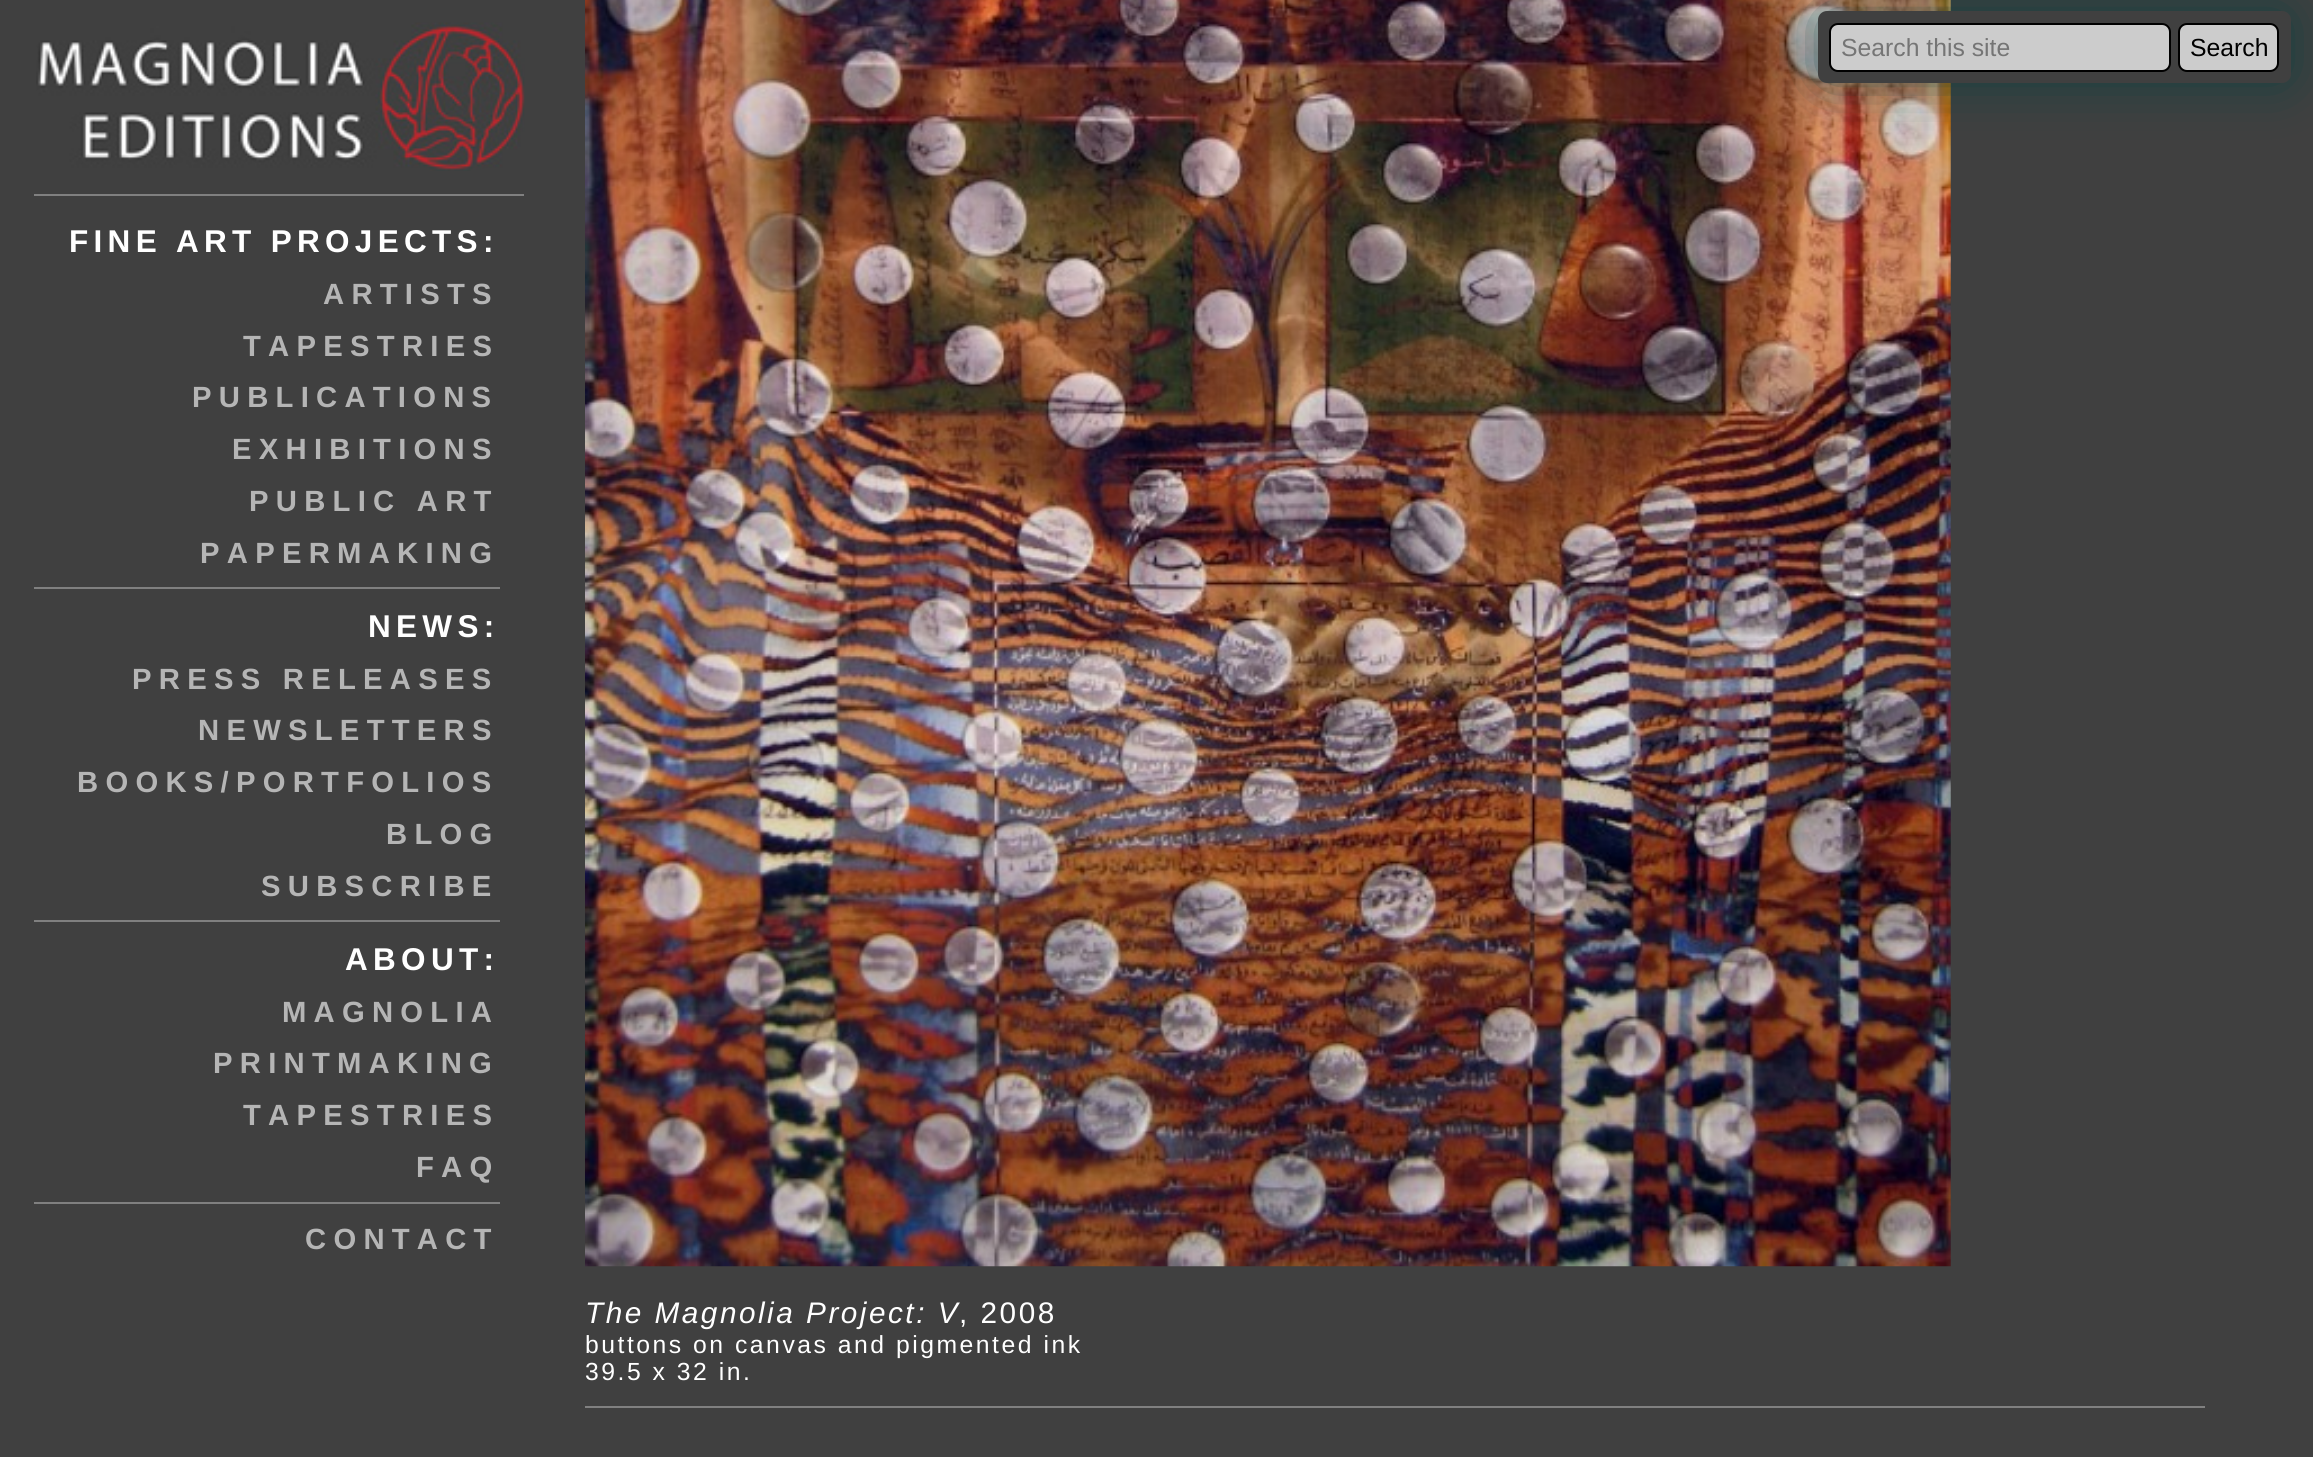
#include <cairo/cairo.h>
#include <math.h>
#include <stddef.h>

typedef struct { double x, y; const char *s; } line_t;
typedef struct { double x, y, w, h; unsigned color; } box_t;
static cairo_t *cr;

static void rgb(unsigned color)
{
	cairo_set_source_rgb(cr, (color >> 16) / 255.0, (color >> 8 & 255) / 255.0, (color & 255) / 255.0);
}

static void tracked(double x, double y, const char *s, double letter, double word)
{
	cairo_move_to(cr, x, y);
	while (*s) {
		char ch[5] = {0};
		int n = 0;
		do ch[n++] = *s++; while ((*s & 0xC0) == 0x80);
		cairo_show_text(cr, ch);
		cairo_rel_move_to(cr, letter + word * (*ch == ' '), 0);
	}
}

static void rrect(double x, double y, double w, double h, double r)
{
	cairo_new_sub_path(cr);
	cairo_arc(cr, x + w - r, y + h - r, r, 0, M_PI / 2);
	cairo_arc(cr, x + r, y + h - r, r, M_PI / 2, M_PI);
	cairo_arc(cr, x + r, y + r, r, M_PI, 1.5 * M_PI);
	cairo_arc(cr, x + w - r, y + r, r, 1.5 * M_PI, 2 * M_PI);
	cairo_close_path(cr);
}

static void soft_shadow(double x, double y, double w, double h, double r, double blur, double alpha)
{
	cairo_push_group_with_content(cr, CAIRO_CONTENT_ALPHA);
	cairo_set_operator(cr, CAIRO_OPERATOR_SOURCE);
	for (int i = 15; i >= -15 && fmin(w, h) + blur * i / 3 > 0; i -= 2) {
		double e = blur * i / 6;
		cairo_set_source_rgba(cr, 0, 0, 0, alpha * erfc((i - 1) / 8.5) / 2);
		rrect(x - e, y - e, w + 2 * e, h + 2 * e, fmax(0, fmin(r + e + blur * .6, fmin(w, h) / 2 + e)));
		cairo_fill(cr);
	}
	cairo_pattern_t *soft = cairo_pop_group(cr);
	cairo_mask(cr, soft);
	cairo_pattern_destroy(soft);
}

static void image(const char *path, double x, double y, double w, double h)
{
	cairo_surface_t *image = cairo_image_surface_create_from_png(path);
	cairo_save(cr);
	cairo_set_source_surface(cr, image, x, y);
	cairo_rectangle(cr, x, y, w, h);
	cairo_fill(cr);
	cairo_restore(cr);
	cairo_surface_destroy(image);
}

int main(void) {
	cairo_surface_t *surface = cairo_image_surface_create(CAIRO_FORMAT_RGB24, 2313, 1457);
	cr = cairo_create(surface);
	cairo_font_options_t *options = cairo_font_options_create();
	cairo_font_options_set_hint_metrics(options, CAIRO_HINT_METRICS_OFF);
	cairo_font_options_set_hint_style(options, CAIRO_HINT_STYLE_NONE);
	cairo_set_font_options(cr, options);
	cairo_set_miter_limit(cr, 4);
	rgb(0x404040);
	cairo_paint(cr);
	image("img/2.png", 585, 0, 1366, 1267);
	rgb(0x044040);
	soft_shadow(1818, 11, 473, 72, 9, 26, 0.74);
	rgb(0x404040);
	rrect(1818, 11, 473, 72, 9);
	cairo_fill(cr);
	rgb(0xcccccc);
	rrect(1830, 24, 340, 47, 8);
	cairo_fill_preserve(cr);
	rgb(0x000000);
	cairo_stroke(cr);
	rgb(0xcccccc);
	rrect(2179, 24, 99, 47, 8);
	cairo_fill_preserve(cr);
	rgb(0x000000);
	cairo_stroke(cr);
	image("img/1.png", 36, 22, 489, 149);
	{
		static const box_t items[] = {
			{34, 194, 490, 2, 0x808080},
			{34, 587, 466, 2, 0x808080},
			{34, 920, 466, 2, 0x808080},
			{34, 1202, 466, 2, 0x808080},
			{585, 1406, 1620, 2, 0x808080},
		};
		for (size_t i = 0; i < sizeof items / sizeof *items; i++) {
			rgb(items[i].color);
			cairo_rectangle(cr, items[i].x, items[i].y, items[i].w, items[i].h);
			cairo_fill(cr);
		}
	}
	cairo_select_font_face(cr, "Liberation Sans", CAIRO_FONT_SLANT_NORMAL, CAIRO_FONT_WEIGHT_NORMAL);
	cairo_set_font_size(cr, 24.75);
	rgb(0x757575);
	cairo_move_to(cr, 1841, 56);
	cairo_show_text(cr, "Search this site");
	rgb(0x000000);
	cairo_move_to(cr, 2190, 56);
	cairo_show_text(cr, "Search");
	cairo_select_font_face(cr, "Liberation Sans", CAIRO_FONT_SLANT_NORMAL, CAIRO_FONT_WEIGHT_BOLD);
	cairo_set_font_size(cr, 31.5);
	rgb(0xffffff);
	tracked(69, 252, "FINE ART PROJECTS:", 5.3, 0);
	cairo_set_font_size(cr, 29.25);
	rgb(0xb5b5b5);
	{
		static const line_t items[] = {
			{323, 304, "ARTISTS"},
			{243, 356, "TAPESTRIES"},
			{192, 407, "PUBLICATIONS"},
			{232, 459, "EXHIBITIONS"},
			{249, 511, "PUBLIC ART"},
			{200, 563, "PAPERMAKING"},
		};
		for (size_t i = 0; i < sizeof items / sizeof *items; i++) {
			tracked(items[i].x, items[i].y, items[i].s, 7.25, 0);
		}
	}
	cairo_set_font_size(cr, 31.5);
	rgb(0xffffff);
	tracked(368, 637, "NEWS:", 5.3, 0);
	cairo_set_font_size(cr, 29.25);
	rgb(0xb5b5b5);
	{
		static const line_t items[] = {
			{132, 689, "PRESS RELEASES"},
			{198, 740, "NEWSLETTERS"},
			{77, 792, "BOOKS/PORTFOLIOS"},
			{386, 844, "BLOG"},
			{261, 896, "SUBSCRIBE"},
		};
		for (size_t i = 0; i < sizeof items / sizeof *items; i++) {
			tracked(items[i].x, items[i].y, items[i].s, 7.25, 0);
		}
	}
	cairo_set_font_size(cr, 31.5);
	rgb(0xffffff);
	tracked(345, 970, "ABOUT:", 5.3, 0);
	cairo_set_font_size(cr, 29.25);
	rgb(0xb5b5b5);
	{
		static const line_t items[] = {
			{282, 1022, "MAGNOLIA"},
			{213, 1073, "PRINTMAKING"},
			{243, 1125, "TAPESTRIES"},
			{416, 1177, "FAQ"},
			{305, 1249, "CONTACT"},
		};
		for (size_t i = 0; i < sizeof items / sizeof *items; i++) {
			tracked(items[i].x, items[i].y, items[i].s, 7.25, 0);
		}
	}
	cairo_select_font_face(cr, "Liberation Sans", CAIRO_FONT_SLANT_ITALIC, CAIRO_FONT_WEIGHT_NORMAL);
	cairo_set_font_size(cr, 29.75);
	rgb(0xffffff);
	tracked(585, 1323, "The Magnolia Project: V", 2.5, 0);
	cairo_select_font_face(cr, "Liberation Sans", CAIRO_FONT_SLANT_NORMAL, CAIRO_FONT_WEIGHT_NORMAL);
	tracked(959, 1323, ", 2008", 2.5, 0);
	cairo_set_font_size(cr, 24.75);
	tracked(585, 1353, "buttons on canvas and pigmented ink", 2.5, 0);
	tracked(585, 1380, "39.5 x 32 in.", 2.5, 0);
	cairo_surface_write_to_png(surface, "page.png");
	cairo_font_options_destroy(options);
	cairo_destroy(cr);
	cairo_surface_destroy(surface);
	return 0;
}
